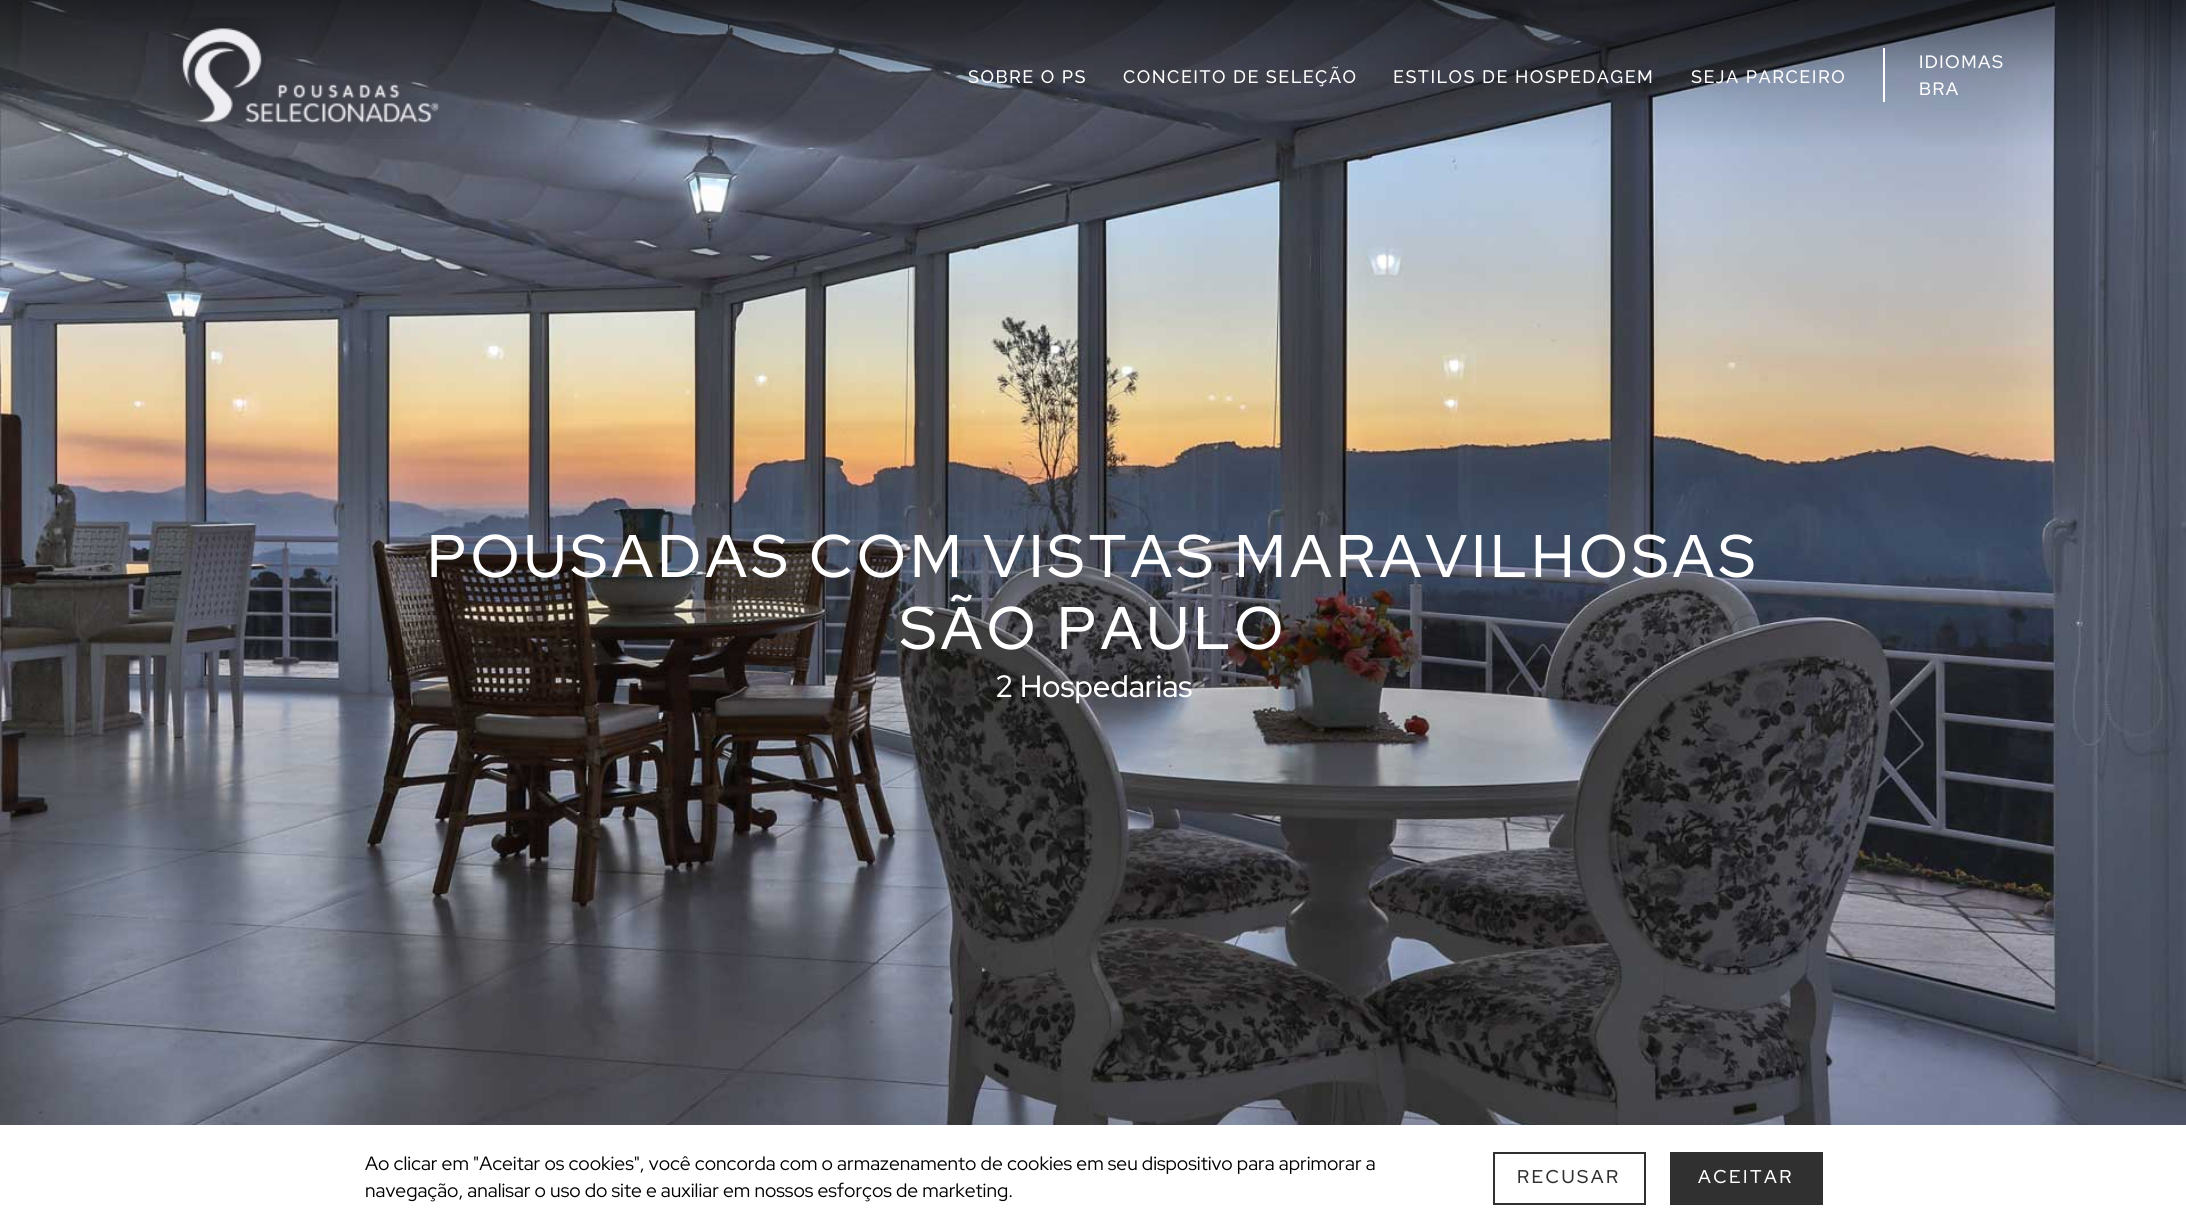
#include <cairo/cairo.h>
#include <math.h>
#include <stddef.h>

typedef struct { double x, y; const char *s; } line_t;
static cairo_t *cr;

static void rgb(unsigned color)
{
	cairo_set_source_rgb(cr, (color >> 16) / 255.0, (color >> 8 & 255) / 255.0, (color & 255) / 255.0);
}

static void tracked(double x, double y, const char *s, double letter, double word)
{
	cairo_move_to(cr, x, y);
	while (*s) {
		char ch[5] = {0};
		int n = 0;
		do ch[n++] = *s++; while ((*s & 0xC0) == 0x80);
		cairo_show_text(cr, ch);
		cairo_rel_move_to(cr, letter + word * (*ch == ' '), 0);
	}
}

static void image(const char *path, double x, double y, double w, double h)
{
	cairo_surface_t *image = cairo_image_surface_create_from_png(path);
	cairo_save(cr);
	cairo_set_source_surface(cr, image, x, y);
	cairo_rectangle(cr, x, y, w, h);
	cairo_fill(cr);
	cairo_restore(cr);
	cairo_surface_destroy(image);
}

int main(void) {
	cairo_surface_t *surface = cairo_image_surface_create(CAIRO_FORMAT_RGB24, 2186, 1230);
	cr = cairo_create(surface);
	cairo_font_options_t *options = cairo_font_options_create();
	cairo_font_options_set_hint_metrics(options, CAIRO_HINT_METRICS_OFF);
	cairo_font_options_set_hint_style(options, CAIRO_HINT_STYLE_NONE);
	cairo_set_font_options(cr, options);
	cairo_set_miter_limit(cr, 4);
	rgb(0xffffff);
	cairo_paint(cr);
	image("img/2.png", 0, 0, 2186, 1125);
	image("img/1.png", 168, 17, 271, 122);
	rgb(0xffffff);
	cairo_rectangle(cr, 1883, 48, 2, 54);
	cairo_fill(cr);
	cairo_rectangle(cr, 1494, 1153, 151, 51);
	rgb(0x303030);
	cairo_stroke(cr);
	cairo_rectangle(cr, 1670, 1152, 153, 53);
	cairo_fill(cr);
	cairo_select_font_face(cr, "Raleway Medium", CAIRO_FONT_SLANT_NORMAL, CAIRO_FONT_WEIGHT_NORMAL);
	cairo_set_font_size(cr, 18);
	rgb(0xffffff);
	{
		static const line_t items[] = {
			{968, 83, "SOBRE O PS"},
			{1123, 83, "CONCEITO DE SELEÇÃO"},
			{1393, 83, "ESTILOS DE HOSPEDAGEM"},
			{1691, 83, "SEJA PARCEIRO"},
		};
		for (size_t i = 0; i < sizeof items / sizeof *items; i++) {
			tracked(items[i].x, items[i].y, items[i].s, 1.5, 0);
		}
	}
	cairo_select_font_face(cr, "Red Hat Display Medium", CAIRO_FONT_SLANT_NORMAL, CAIRO_FONT_WEIGHT_NORMAL);
	tracked(1919, 68, "IDIOMAS", 1.5, 0);
	tracked(1919, 95, "BRA", 1.5, 0);
	cairo_set_font_size(cr, 60);
	tracked(427, 577, "POUSADAS COM VISTAS MARAVILHOSAS", 4.5, 0);
	tracked(900, 649, "SÃO PAULO", 4.5, 0);
	cairo_set_font_size(cr, 30.75);
	cairo_move_to(cr, 995, 697);
	cairo_show_text(cr, "2 Hospedarias");
	cairo_select_font_face(cr, "Red Hat Display", CAIRO_FONT_SLANT_NORMAL, CAIRO_FONT_WEIGHT_NORMAL);
	cairo_set_font_size(cr, 19.2);
	rgb(0x000000);
	cairo_move_to(cr, 365, 1170);
	cairo_show_text(cr, "Ao clicar em \"Aceitar os cookies\", você concorda com o armazenamento de cookies em seu dispositivo para aprimorar a");
	cairo_move_to(cr, 365, 1197);
	cairo_show_text(cr, "navegação, analisar o uso do site e auxiliar em nossos esforços de marketing.");
	cairo_select_font_face(cr, "Red Hat Display Medium", CAIRO_FONT_SLANT_NORMAL, CAIRO_FONT_WEIGHT_NORMAL);
	cairo_set_font_size(cr, 18.5);
	rgb(0x303030);
	tracked(1517, 1183, "RECUSAR", 2.5, 0);
	rgb(0xffffff);
	tracked(1698, 1183, "ACEITAR", 2.5, 0);
	cairo_surface_write_to_png(surface, "page.png");
	cairo_font_options_destroy(options);
	cairo_destroy(cr);
	cairo_surface_destroy(surface);
	return 0;
}
